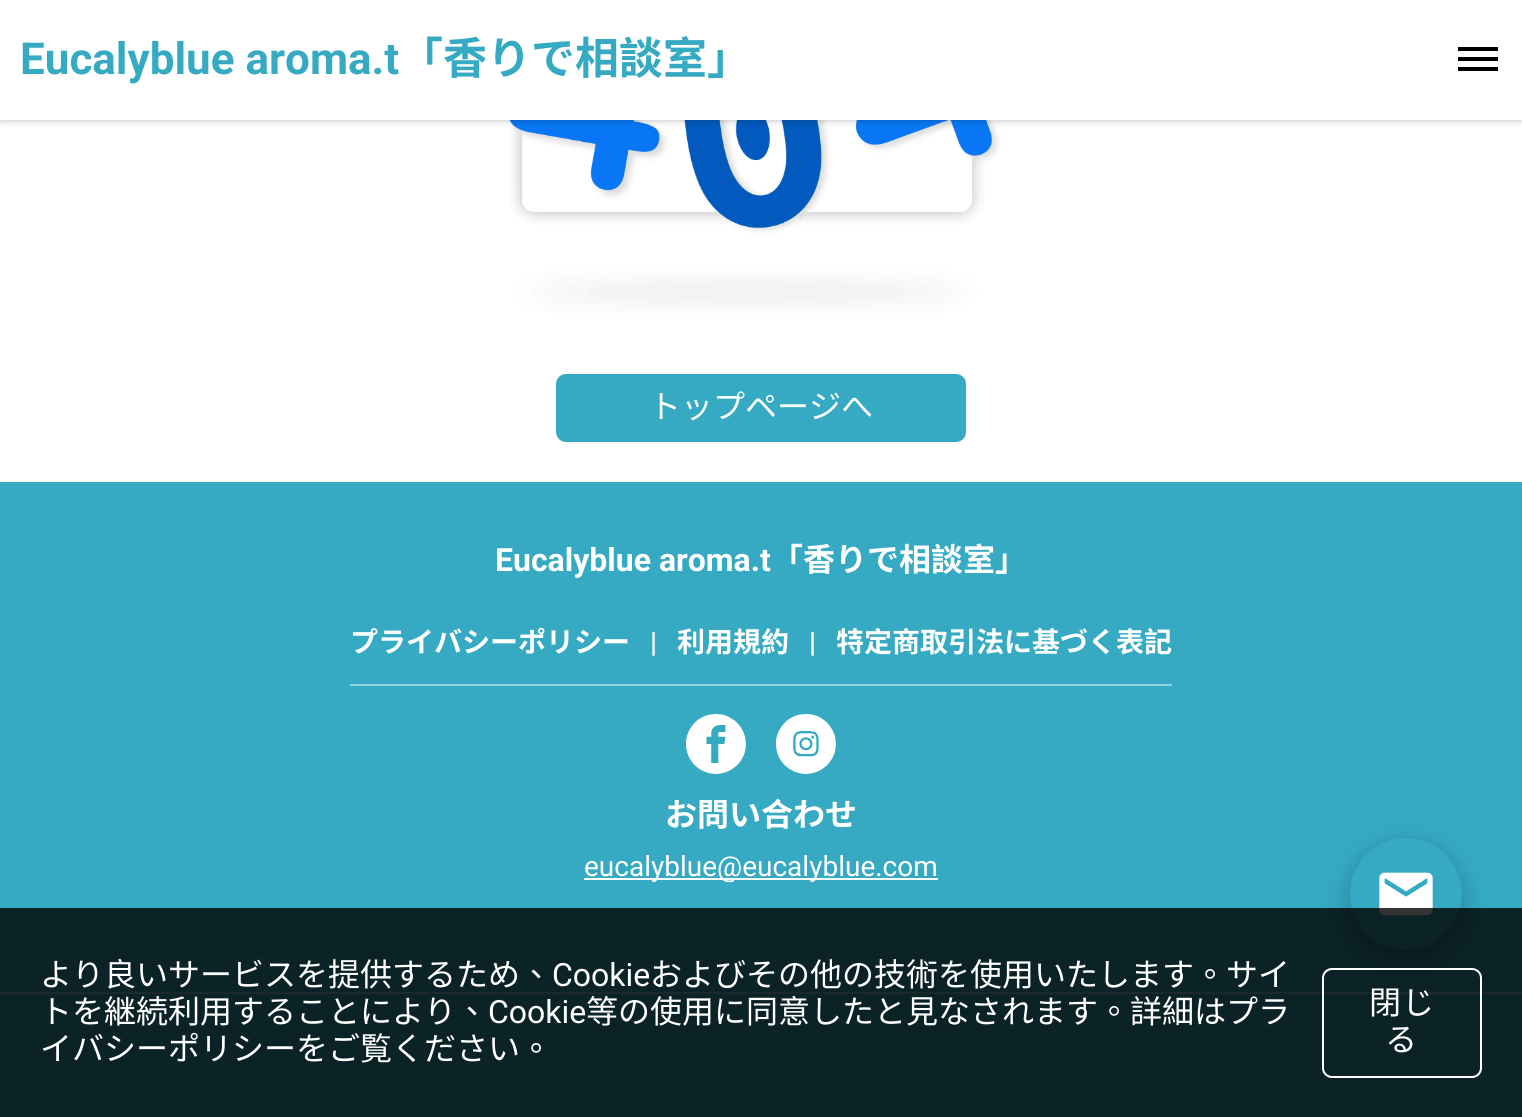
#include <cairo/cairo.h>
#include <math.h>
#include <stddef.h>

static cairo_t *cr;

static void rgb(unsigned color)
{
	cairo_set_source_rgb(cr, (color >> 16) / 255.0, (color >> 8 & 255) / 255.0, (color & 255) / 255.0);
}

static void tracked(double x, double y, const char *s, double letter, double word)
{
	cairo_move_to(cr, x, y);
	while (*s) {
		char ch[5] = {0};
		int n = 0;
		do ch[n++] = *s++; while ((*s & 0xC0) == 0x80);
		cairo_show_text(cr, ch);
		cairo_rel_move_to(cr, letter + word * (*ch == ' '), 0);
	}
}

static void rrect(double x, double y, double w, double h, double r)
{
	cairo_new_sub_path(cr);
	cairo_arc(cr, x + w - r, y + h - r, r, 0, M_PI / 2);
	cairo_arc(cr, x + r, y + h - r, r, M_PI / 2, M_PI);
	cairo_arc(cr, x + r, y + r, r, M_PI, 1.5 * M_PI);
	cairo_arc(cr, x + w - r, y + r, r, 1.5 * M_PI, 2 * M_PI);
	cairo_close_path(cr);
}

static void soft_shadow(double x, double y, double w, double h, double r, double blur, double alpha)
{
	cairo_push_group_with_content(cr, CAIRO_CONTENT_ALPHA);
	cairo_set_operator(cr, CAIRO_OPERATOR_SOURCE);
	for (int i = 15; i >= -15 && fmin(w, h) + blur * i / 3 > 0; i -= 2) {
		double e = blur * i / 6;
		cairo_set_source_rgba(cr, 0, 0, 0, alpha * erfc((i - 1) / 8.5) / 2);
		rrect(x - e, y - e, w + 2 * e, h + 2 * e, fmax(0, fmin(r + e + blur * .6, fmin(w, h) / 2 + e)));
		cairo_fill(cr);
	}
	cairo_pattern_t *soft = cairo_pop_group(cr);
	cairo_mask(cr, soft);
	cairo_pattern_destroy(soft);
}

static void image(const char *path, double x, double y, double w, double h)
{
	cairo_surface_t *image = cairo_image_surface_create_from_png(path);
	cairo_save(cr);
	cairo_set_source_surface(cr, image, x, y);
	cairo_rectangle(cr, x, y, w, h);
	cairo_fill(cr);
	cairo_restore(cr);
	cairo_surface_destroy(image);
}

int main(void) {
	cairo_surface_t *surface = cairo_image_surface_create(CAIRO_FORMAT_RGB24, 1522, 1117);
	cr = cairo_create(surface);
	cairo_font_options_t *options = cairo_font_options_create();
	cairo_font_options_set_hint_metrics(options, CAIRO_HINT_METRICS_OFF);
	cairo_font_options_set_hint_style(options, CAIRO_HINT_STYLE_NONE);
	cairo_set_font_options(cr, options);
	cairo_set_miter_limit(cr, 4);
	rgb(0xffffff);
	cairo_paint(cr);
	image("img/1.png", 507, 120, 495, 193);
	rgb(0x000000);
	soft_shadow(0, 0, 1522, 120, 0, 4, 0.28);
	rgb(0xffffff);
	cairo_rectangle(cr, 0, 0, 1522, 120);
	cairo_fill(cr);
	rgb(0x000000);
	cairo_new_path(cr);
	cairo_move_to(cr, 1458, 67);
	cairo_line_to(cr, 1458, 71);
	cairo_line_to(cr, 1498, 71);
	cairo_line_to(cr, 1498, 67);
	cairo_close_path(cr);
	cairo_move_to(cr, 1458, 57);
	cairo_line_to(cr, 1458, 61);
	cairo_line_to(cr, 1498, 61);
	cairo_line_to(cr, 1498, 57);
	cairo_close_path(cr);
	cairo_move_to(cr, 1458, 47);
	cairo_line_to(cr, 1458, 51);
	cairo_line_to(cr, 1498, 51);
	cairo_line_to(cr, 1498, 47);
	cairo_close_path(cr);
	cairo_fill(cr);
	rgb(0x35aac2);
	rrect(556, 374, 410, 68, 10);
	cairo_fill(cr);
	cairo_rectangle(cr, 0, 482, 1522, 635);
	cairo_fill(cr);
	rgb(0x8ecfdd);
	cairo_rectangle(cr, 350, 684, 822, 2);
	cairo_fill(cr);
	image("img/2.png", 686, 714, 60, 60);
	image("img/3.png", 776, 714, 60, 60);
	rgb(0xffffff);
	cairo_rectangle(cr, 584, 878, 354, 2);
	cairo_fill(cr);
	rgb(0x8ecfdd);
	cairo_rectangle(cr, 0, 992, 1522, 2);
	cairo_fill(cr);
	rgb(0x000000);
	soft_shadow(1350, 846, 112, 112, 56, 12, 0.25);
	rgb(0x35aac2);
	cairo_arc(cr, 1406, 894, 56, 0, 2 * M_PI);
	cairo_fill(cr);
	image("img/4.png", 1379, 872, 54, 44);
	cairo_set_source_rgba(cr, 0, 0, 0, 0.8);
	cairo_rectangle(cr, 0, 908, 1522, 209);
	cairo_fill(cr);
	rrect(1323, 969, 158, 108, 9);
	rgb(0xffffff);
	cairo_stroke(cr);
	cairo_select_font_face(cr, "Roboto", CAIRO_FONT_SLANT_NORMAL, CAIRO_FONT_WEIGHT_BOLD);
	cairo_set_font_size(cr, 44);
	rgb(0x35aac2);
	cairo_move_to(cr, 20, 74);
	cairo_show_text(cr, "Eucalyblue aroma.t");
	cairo_select_font_face(cr, "Noto Sans TC", CAIRO_FONT_SLANT_NORMAL, CAIRO_FONT_WEIGHT_BOLD);
	cairo_move_to(cr, 399, 74);
	cairo_show_text(cr, "「香りで相談室」");
	cairo_select_font_face(cr, "Noto Sans TC", CAIRO_FONT_SLANT_NORMAL, CAIRO_FONT_WEIGHT_NORMAL);
	cairo_set_font_size(cr, 32);
	rgb(0xffffff);
	cairo_move_to(cr, 649, 418);
	cairo_show_text(cr, "トップページへ");
	cairo_select_font_face(cr, "Roboto", CAIRO_FONT_SLANT_NORMAL, CAIRO_FONT_WEIGHT_BOLD);
	cairo_move_to(cr, 495, 571);
	cairo_show_text(cr, "Eucalyblue aroma.t");
	cairo_select_font_face(cr, "Noto Sans TC", CAIRO_FONT_SLANT_NORMAL, CAIRO_FONT_WEIGHT_BOLD);
	cairo_move_to(cr, 771, 571);
	cairo_show_text(cr, "「香りで相談室」");
	cairo_set_font_size(cr, 28);
	cairo_move_to(cr, 350, 652);
	cairo_show_text(cr, "プライバシーポリシー");
	cairo_select_font_face(cr, "Roboto", CAIRO_FONT_SLANT_NORMAL, CAIRO_FONT_WEIGHT_BOLD);
	cairo_move_to(cr, 650, 652);
	cairo_show_text(cr, "|");
	cairo_select_font_face(cr, "Noto Sans TC", CAIRO_FONT_SLANT_NORMAL, CAIRO_FONT_WEIGHT_BOLD);
	cairo_move_to(cr, 677, 652);
	cairo_show_text(cr, "利用規約");
	cairo_select_font_face(cr, "Roboto", CAIRO_FONT_SLANT_NORMAL, CAIRO_FONT_WEIGHT_BOLD);
	cairo_move_to(cr, 809, 652);
	cairo_show_text(cr, "|");
	cairo_select_font_face(cr, "Noto Sans TC", CAIRO_FONT_SLANT_NORMAL, CAIRO_FONT_WEIGHT_BOLD);
	cairo_move_to(cr, 836, 652);
	cairo_show_text(cr, "特定商取引法に基づく表記");
	cairo_set_font_size(cr, 32);
	cairo_move_to(cr, 665, 826);
	cairo_show_text(cr, "お問い合わせ");
	cairo_select_font_face(cr, "Roboto", CAIRO_FONT_SLANT_NORMAL, CAIRO_FONT_WEIGHT_NORMAL);
	cairo_set_font_size(cr, 28);
	cairo_move_to(cr, 584, 876);
	cairo_show_text(cr, "eucalyblue@eucalyblue.com");
	cairo_select_font_face(cr, "Noto Sans TC", CAIRO_FONT_SLANT_NORMAL, CAIRO_FONT_WEIGHT_NORMAL);
	cairo_set_font_size(cr, 32);
	cairo_move_to(cr, 40, 986);
	cairo_show_text(cr, "より良いサービスを提供するため、");
	cairo_select_font_face(cr, "Roboto", CAIRO_FONT_SLANT_NORMAL, CAIRO_FONT_WEIGHT_NORMAL);
	cairo_move_to(cr, 552, 986);
	cairo_show_text(cr, "Cookie");
	cairo_select_font_face(cr, "Noto Sans TC", CAIRO_FONT_SLANT_NORMAL, CAIRO_FONT_WEIGHT_NORMAL);
	cairo_move_to(cr, 650, 986);
	cairo_show_text(cr, "およびその他の技術を使用いたします。サイ");
	cairo_move_to(cr, 40, 1023);
	cairo_show_text(cr, "トを");
	cairo_select_font_face(cr, "Noto Sans JP", CAIRO_FONT_SLANT_NORMAL, CAIRO_FONT_WEIGHT_NORMAL);
	cairo_move_to(cr, 104, 1023);
	cairo_show_text(cr, "継続");
	cairo_select_font_face(cr, "Noto Sans TC", CAIRO_FONT_SLANT_NORMAL, CAIRO_FONT_WEIGHT_NORMAL);
	cairo_move_to(cr, 168, 1023);
	cairo_show_text(cr, "利用することにより、");
	cairo_select_font_face(cr, "Roboto", CAIRO_FONT_SLANT_NORMAL, CAIRO_FONT_WEIGHT_NORMAL);
	cairo_move_to(cr, 488, 1023);
	cairo_show_text(cr, "Cookie");
	cairo_select_font_face(cr, "Noto Sans TC", CAIRO_FONT_SLANT_NORMAL, CAIRO_FONT_WEIGHT_NORMAL);
	cairo_move_to(cr, 586, 1023);
	cairo_show_text(cr, "等の使用に同意したと見なされます。詳細はプラ");
	cairo_move_to(cr, 40, 1060);
	cairo_show_text(cr, "イバシーポリシーをご覧ください。");
	tracked(1369, 1014, "閉じ", 1, 0);
	tracked(1385, 1051, "る", 1, 0);
	cairo_surface_write_to_png(surface, "page.png");
	cairo_font_options_destroy(options);
	cairo_destroy(cr);
	cairo_surface_destroy(surface);
	return 0;
}
